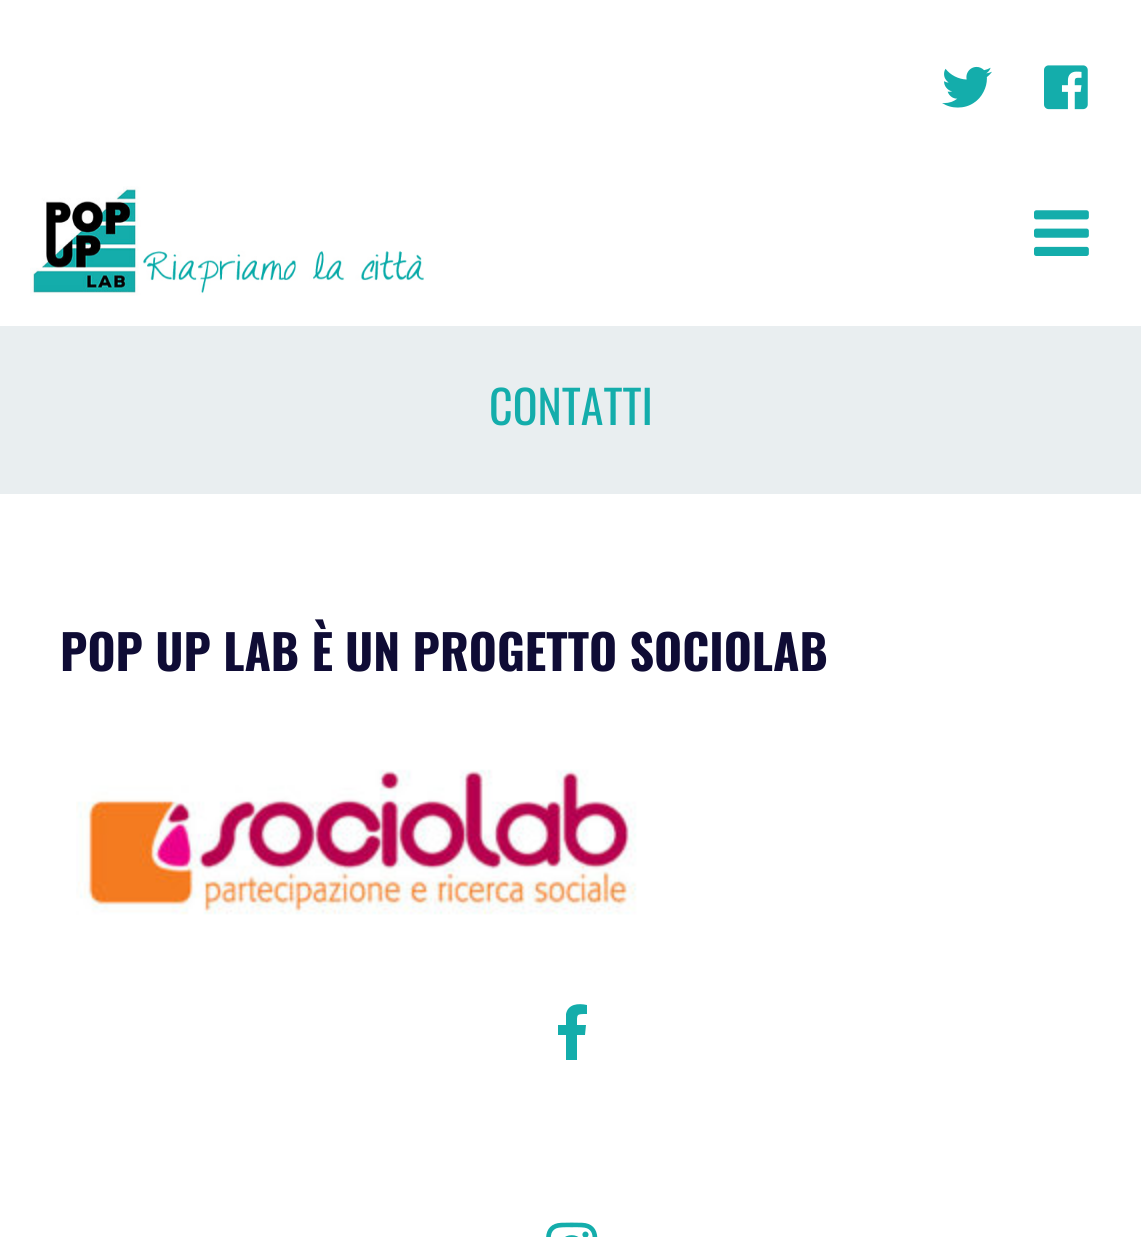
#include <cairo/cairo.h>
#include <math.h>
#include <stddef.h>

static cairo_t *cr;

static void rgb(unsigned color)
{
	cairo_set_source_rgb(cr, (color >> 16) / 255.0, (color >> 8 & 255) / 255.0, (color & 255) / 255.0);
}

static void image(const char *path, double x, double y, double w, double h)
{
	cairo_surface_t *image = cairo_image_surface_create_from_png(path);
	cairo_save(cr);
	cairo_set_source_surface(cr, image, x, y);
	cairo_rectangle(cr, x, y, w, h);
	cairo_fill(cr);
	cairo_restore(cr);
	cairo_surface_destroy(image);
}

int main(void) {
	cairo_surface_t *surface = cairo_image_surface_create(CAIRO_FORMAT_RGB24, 1141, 1237);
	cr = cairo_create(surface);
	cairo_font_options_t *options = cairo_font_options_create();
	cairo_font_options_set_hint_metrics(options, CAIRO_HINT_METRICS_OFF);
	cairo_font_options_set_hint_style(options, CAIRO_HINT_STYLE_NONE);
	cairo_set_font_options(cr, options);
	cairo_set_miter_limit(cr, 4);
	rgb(0xffffff);
	cairo_paint(cr);
	image("img/1.png", 942, 66, 50, 42);
	image("img/2.png", 1044, 65, 44, 45);
	image("img/3.png", 30, 186, 394, 110);
	image("img/4.png", 1034, 210, 55, 46);
	rgb(0xe9eef0);
	cairo_rectangle(cr, 0, 326, 1141, 168);
	cairo_fill(cr);
	image("img/5.png", 76, 769, 561, 146);
	rgb(0x14adab);
	cairo_new_path(cr);
	cairo_move_to(cr, 587, 1005);
	cairo_line_to(cr, 587, 1014);
	cairo_curve_to(cr, 576, 1014, 577, 1014, 577, 1025);
	cairo_line_to(cr, 586, 1025);
	cairo_line_to(cr, 585, 1035);
	cairo_line_to(cr, 577, 1035);
	cairo_line_to(cr, 577, 1060);
	cairo_line_to(cr, 566, 1060);
	cairo_line_to(cr, 566, 1035);
	cairo_line_to(cr, 558, 1035);
	cairo_line_to(cr, 558, 1025);
	cairo_line_to(cr, 566, 1025);
	cairo_line_to(cr, 566, 1014);
	cairo_curve_to(cr, 568, 1004, 578, 1003, 587, 1005);
	cairo_close_path(cr);
	cairo_fill(cr);
	image("img/6.png", 546, 1222, 52, 15);
	cairo_select_font_face(cr, "Oswald", CAIRO_FONT_SLANT_NORMAL, CAIRO_FONT_WEIGHT_NORMAL);
	cairo_set_font_size(cr, 46);
	cairo_move_to(cr, 489, 425);
	cairo_show_text(cr, "CONTATTI");
	cairo_select_font_face(cr, "Oswald", CAIRO_FONT_SLANT_NORMAL, CAIRO_FONT_WEIGHT_BOLD);
	cairo_set_font_size(cr, 48);
	rgb(0x0f0c35);
	cairo_move_to(cr, 60, 671);
	cairo_show_text(cr, "POP UP LAB È UN PROGETTO SOCIOLAB");
	cairo_surface_write_to_png(surface, "page.png");
	cairo_font_options_destroy(options);
	cairo_destroy(cr);
	cairo_surface_destroy(surface);
	return 0;
}
